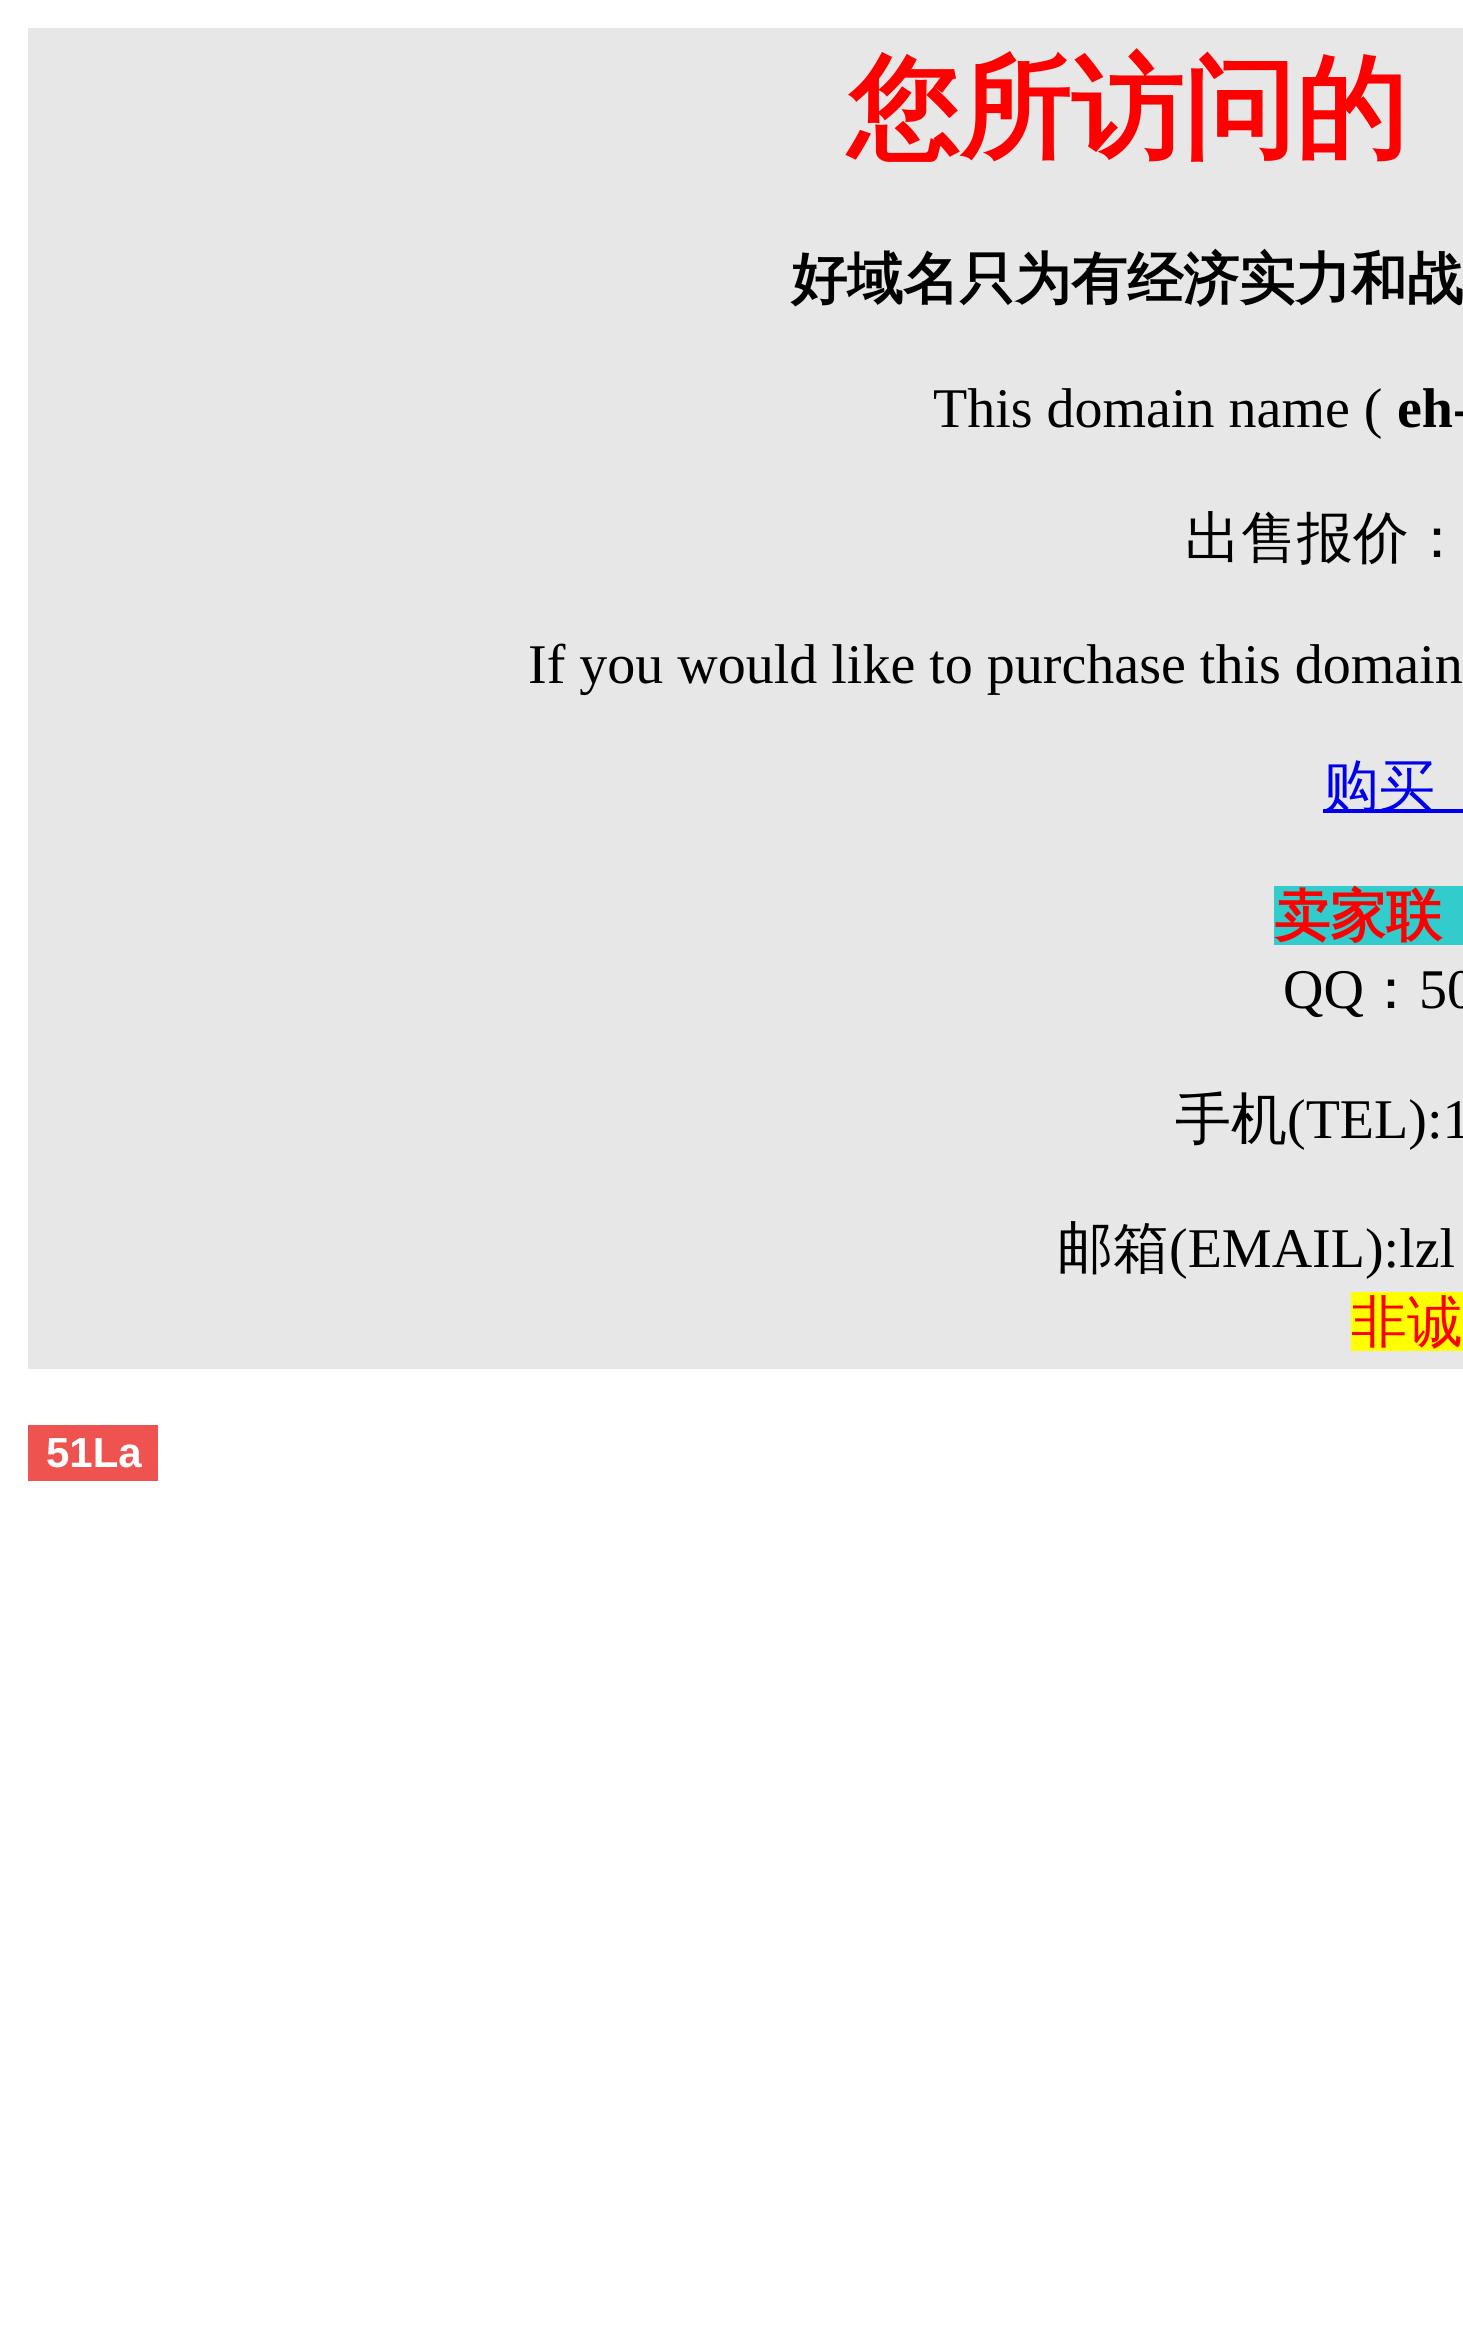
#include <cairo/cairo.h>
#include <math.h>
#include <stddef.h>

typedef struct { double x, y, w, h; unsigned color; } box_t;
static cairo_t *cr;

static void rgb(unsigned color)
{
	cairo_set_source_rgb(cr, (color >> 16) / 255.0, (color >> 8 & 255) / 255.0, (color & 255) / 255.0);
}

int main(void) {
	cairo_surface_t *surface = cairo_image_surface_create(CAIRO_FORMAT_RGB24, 1463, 2345);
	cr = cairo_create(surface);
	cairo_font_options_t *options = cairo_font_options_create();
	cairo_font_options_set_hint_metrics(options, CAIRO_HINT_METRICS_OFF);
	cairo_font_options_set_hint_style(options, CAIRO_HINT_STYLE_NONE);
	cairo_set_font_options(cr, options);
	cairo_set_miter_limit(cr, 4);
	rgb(0xffffff);
	cairo_paint(cr);
	{
		static const box_t items[] = {
			{28, 28, 1435, 1341, 0xe7e7e7},
			{1323, 809, 140, 4, 0x0000ee},
			{1274, 886, 189, 59, 0x33cccc},
			{1351, 1292, 112, 59, 0xffff00},
			{28, 1425, 130, 56, 0xef5350},
		};
		for (size_t i = 0; i < sizeof items / sizeof *items; i++) {
			rgb(items[i].color);
			cairo_rectangle(cr, items[i].x, items[i].y, items[i].w, items[i].h);
			cairo_fill(cr);
		}
	}
	cairo_select_font_face(cr, "WenQuanYi Zen Hei", CAIRO_FONT_SLANT_NORMAL, CAIRO_FONT_WEIGHT_BOLD);
	cairo_set_font_size(cr, 112);
	rgb(0xff0000);
	cairo_move_to(cr, 847, 147);
	cairo_show_text(cr, "您所访问的");
	cairo_set_font_size(cr, 56);
	rgb(0x000000);
	cairo_move_to(cr, 791, 298);
	cairo_show_text(cr, "好域名只为有经济实力和战");
	cairo_select_font_face(cr, "Liberation Serif", CAIRO_FONT_SLANT_NORMAL, CAIRO_FONT_WEIGHT_NORMAL);
	cairo_move_to(cr, 933, 427);
	cairo_show_text(cr, "This domain name (");
	cairo_select_font_face(cr, "Liberation Serif", CAIRO_FONT_SLANT_NORMAL, CAIRO_FONT_WEIGHT_BOLD);
	cairo_move_to(cr, 1397, 427);
	cairo_show_text(cr, "eh-");
	cairo_select_font_face(cr, "WenQuanYi Zen Hei Medium", CAIRO_FONT_SLANT_NORMAL, CAIRO_FONT_WEIGHT_NORMAL);
	cairo_move_to(cr, 1185, 557);
	cairo_show_text(cr, "出售报价：");
	cairo_select_font_face(cr, "Liberation Serif", CAIRO_FONT_SLANT_NORMAL, CAIRO_FONT_WEIGHT_NORMAL);
	cairo_move_to(cr, 528, 683);
	cairo_show_text(cr, "If you would like to purchase this domain");
	cairo_select_font_face(cr, "WenQuanYi Zen Hei Medium", CAIRO_FONT_SLANT_NORMAL, CAIRO_FONT_WEIGHT_NORMAL);
	rgb(0x0000ee);
	cairo_move_to(cr, 1323, 805);
	cairo_show_text(cr, "购买");
	cairo_select_font_face(cr, "WenQuanYi Zen Hei", CAIRO_FONT_SLANT_NORMAL, CAIRO_FONT_WEIGHT_BOLD);
	rgb(0xff0000);
	cairo_move_to(cr, 1274, 935);
	cairo_show_text(cr, "卖家联");
	cairo_select_font_face(cr, "Liberation Serif", CAIRO_FONT_SLANT_NORMAL, CAIRO_FONT_WEIGHT_NORMAL);
	rgb(0x000000);
	cairo_move_to(cr, 1283, 1008);
	cairo_show_text(cr, "QQ");
	cairo_select_font_face(cr, "WenQuanYi Zen Hei Medium", CAIRO_FONT_SLANT_NORMAL, CAIRO_FONT_WEIGHT_NORMAL);
	cairo_move_to(cr, 1363, 1008);
	cairo_show_text(cr, "：");
	cairo_select_font_face(cr, "Liberation Serif", CAIRO_FONT_SLANT_NORMAL, CAIRO_FONT_WEIGHT_NORMAL);
	cairo_move_to(cr, 1419, 1008);
	cairo_show_text(cr, "50");
	cairo_select_font_face(cr, "WenQuanYi Zen Hei Medium", CAIRO_FONT_SLANT_NORMAL, CAIRO_FONT_WEIGHT_NORMAL);
	cairo_move_to(cr, 1175, 1138);
	cairo_show_text(cr, "手机");
	cairo_select_font_face(cr, "Liberation Serif", CAIRO_FONT_SLANT_NORMAL, CAIRO_FONT_WEIGHT_NORMAL);
	cairo_move_to(cr, 1287, 1138);
	cairo_show_text(cr, "(TEL):1");
	cairo_select_font_face(cr, "WenQuanYi Zen Hei Medium", CAIRO_FONT_SLANT_NORMAL, CAIRO_FONT_WEIGHT_NORMAL);
	cairo_move_to(cr, 1057, 1267);
	cairo_show_text(cr, "邮箱");
	cairo_select_font_face(cr, "Liberation Serif", CAIRO_FONT_SLANT_NORMAL, CAIRO_FONT_WEIGHT_NORMAL);
	cairo_move_to(cr, 1169, 1267);
	cairo_show_text(cr, "(EMAIL):lzl");
	cairo_select_font_face(cr, "WenQuanYi Zen Hei Medium", CAIRO_FONT_SLANT_NORMAL, CAIRO_FONT_WEIGHT_NORMAL);
	rgb(0xff0000);
	cairo_move_to(cr, 1351, 1341);
	cairo_show_text(cr, "非诚");
	cairo_select_font_face(cr, "Liberation Sans", CAIRO_FONT_SLANT_NORMAL, CAIRO_FONT_WEIGHT_BOLD);
	cairo_set_font_size(cr, 42);
	rgb(0xffffff);
	cairo_move_to(cr, 46, 1467);
	cairo_show_text(cr, "51La");
	cairo_surface_write_to_png(surface, "page.png");
	cairo_font_options_destroy(options);
	cairo_destroy(cr);
	cairo_surface_destroy(surface);
	return 0;
}
